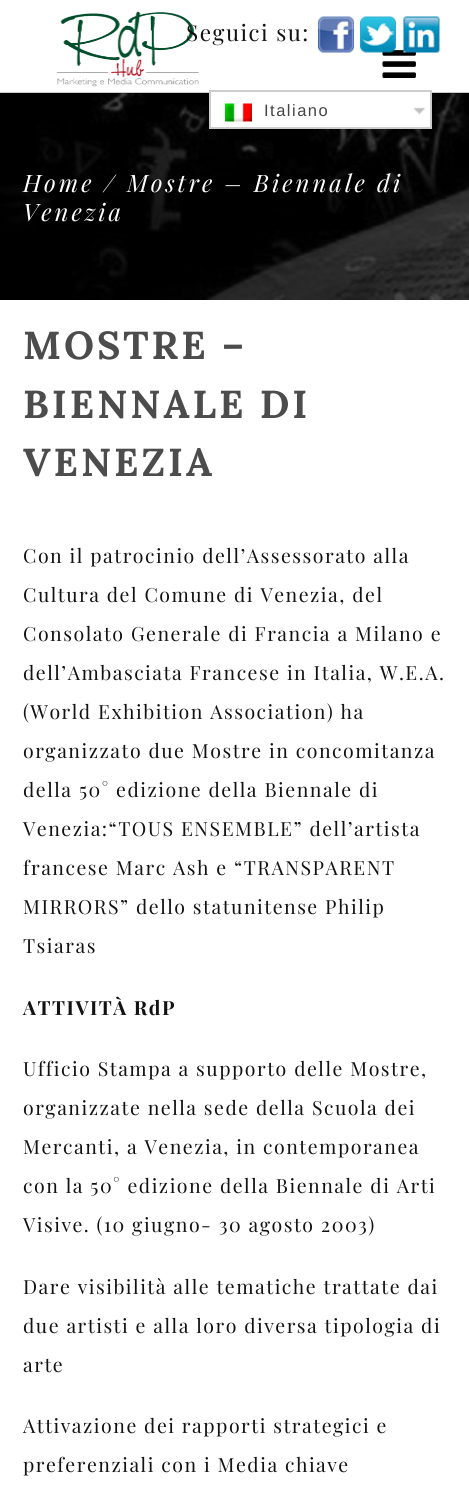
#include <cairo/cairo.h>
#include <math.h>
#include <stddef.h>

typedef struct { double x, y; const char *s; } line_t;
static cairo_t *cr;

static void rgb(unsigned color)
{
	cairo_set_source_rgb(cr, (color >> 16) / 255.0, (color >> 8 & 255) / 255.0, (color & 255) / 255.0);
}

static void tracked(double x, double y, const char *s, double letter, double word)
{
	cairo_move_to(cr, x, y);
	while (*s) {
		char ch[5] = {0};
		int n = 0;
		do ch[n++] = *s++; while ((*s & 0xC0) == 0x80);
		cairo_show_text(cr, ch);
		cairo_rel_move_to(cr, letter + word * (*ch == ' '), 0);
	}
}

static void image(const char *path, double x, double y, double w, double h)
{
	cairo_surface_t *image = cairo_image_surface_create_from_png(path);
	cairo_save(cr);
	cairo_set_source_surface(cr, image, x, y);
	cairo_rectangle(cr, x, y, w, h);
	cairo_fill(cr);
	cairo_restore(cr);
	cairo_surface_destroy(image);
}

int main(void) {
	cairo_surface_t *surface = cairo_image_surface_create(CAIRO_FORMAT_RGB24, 469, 1485);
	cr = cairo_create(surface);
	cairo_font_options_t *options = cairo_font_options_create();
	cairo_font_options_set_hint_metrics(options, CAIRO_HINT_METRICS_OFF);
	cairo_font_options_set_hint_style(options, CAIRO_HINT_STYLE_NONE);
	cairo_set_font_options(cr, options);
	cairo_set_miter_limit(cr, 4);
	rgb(0xffffff);
	cairo_paint(cr);
	image("img/8.png", 0, 93, 469, 207);
	cairo_set_source_rgba(cr, 0, 0, 0, 0.2);
	cairo_rectangle(cr, 0, 92, 469, 2);
	cairo_fill(cr);
	image("img/1.png", 56, 11, 143, 76);
	image("img/2.png", 318, 16, 36, 37);
	image("img/5.png", 382, 50, 34, 28);
	image("img/3.png", 360, 16, 36, 37);
	image("img/4.png", 403, 16, 37, 37);
	rgb(0xffffff);
	cairo_rectangle(cr, 211, 92, 219, 35);
	cairo_fill(cr);
	image("img/6.png", 413, 107, 12, 8);
	cairo_rectangle(cr, 210, 91, 221, 37);
	rgb(0xcdcdcd);
	cairo_stroke(cr);
	image("img/7.png", 225, 103, 27, 19);
	cairo_select_font_face(cr, "Playfair Display", CAIRO_FONT_SLANT_NORMAL, CAIRO_FONT_WEIGHT_NORMAL);
	cairo_set_font_size(cr, 22.5);
	rgb(0x121212);
	tracked(186, 41, "Seguici su:", 1.5, 0);
	cairo_select_font_face(cr, "Liberation Sans", CAIRO_FONT_SLANT_NORMAL, CAIRO_FONT_WEIGHT_NORMAL);
	cairo_set_font_size(cr, 16.5);
	rgb(0x444444);
	tracked(264, 116, "Italiano", 1.5, 0);
	cairo_select_font_face(cr, "Playfair Display", CAIRO_FONT_SLANT_ITALIC, CAIRO_FONT_WEIGHT_NORMAL);
	cairo_set_font_size(cr, 24);
	rgb(0xffffff);
	tracked(23, 192, "Home / Mostre – Biennale di", 3, 0);
	tracked(23, 221, "Venezia", 3, 0);
	cairo_select_font_face(cr, "Lora", CAIRO_FONT_SLANT_NORMAL, CAIRO_FONT_WEIGHT_BOLD);
	cairo_set_font_size(cr, 39);
	rgb(0x4c4c4c);
	{
		static const line_t items[] = {
			{23, 359, "MOSTRE –"},
			{23, 418, "BIENNALE DI"},
			{23, 476, "VENEZIA"},
		};
		for (size_t i = 0; i < sizeof items / sizeof *items; i++) {
			tracked(items[i].x, items[i].y, items[i].s, 3, 0);
		}
	}
	cairo_select_font_face(cr, "Playfair Display", CAIRO_FONT_SLANT_NORMAL, CAIRO_FONT_WEIGHT_NORMAL);
	cairo_set_font_size(cr, 19.5);
	rgb(0x121212);
	{
		static const line_t items[] = {
			{23, 563, "Con il patrocinio dell’Assessorato alla"},
			{23, 602, "Cultura del Comune di Venezia, del"},
			{23, 641, "Consolato Generale di Francia a Milano e"},
			{23, 680, "dell’Ambasciata Francese in Italia, W.E.A."},
			{23, 719, "(World Exhibition Association) ha"},
			{23, 758, "organizzato due Mostre in concomitanza"},
			{23, 797, "della 50° edizione della Biennale di"},
			{23, 836, "Venezia:“TOUS ENSEMBLE” dell’artista"},
			{23, 875, "francese Marc Ash e “TRANSPARENT"},
			{23, 914, "MIRRORS” dello statunitense Philip"},
			{23, 953, "Tsiaras"},
		};
		for (size_t i = 0; i < sizeof items / sizeof *items; i++) {
			tracked(items[i].x, items[i].y, items[i].s, 1.5, 0);
		}
	}
	cairo_select_font_face(cr, "Playfair Display", CAIRO_FONT_SLANT_NORMAL, CAIRO_FONT_WEIGHT_BOLD);
	tracked(23, 1015, "ATTIVITÀ RdP", 1.5, 0);
	cairo_select_font_face(cr, "Playfair Display", CAIRO_FONT_SLANT_NORMAL, CAIRO_FONT_WEIGHT_NORMAL);
	{
		static const line_t items[] = {
			{23, 1076, "Ufficio Stampa a supporto delle Mostre,"},
			{23, 1115, "organizzate nella sede della Scuola dei"},
			{23, 1154, "Mercanti, a Venezia, in contemporanea"},
			{23, 1193, "con la 50° edizione della Biennale di Arti"},
			{23, 1232, "Visive. (10 giugno- 30 agosto 2003)"},
			{23, 1294, "Dare visibilità alle tematiche trattate dai"},
			{23, 1333, "due artisti e alla loro diversa tipologia di"},
			{23, 1372, "arte"},
			{23, 1433, "Attivazione dei rapporti strategici e"},
			{23, 1472, "preferenziali con i Media chiave"},
		};
		for (size_t i = 0; i < sizeof items / sizeof *items; i++) {
			tracked(items[i].x, items[i].y, items[i].s, 1.5, 0);
		}
	}
	cairo_surface_write_to_png(surface, "page.png");
	cairo_font_options_destroy(options);
	cairo_destroy(cr);
	cairo_surface_destroy(surface);
	return 0;
}
